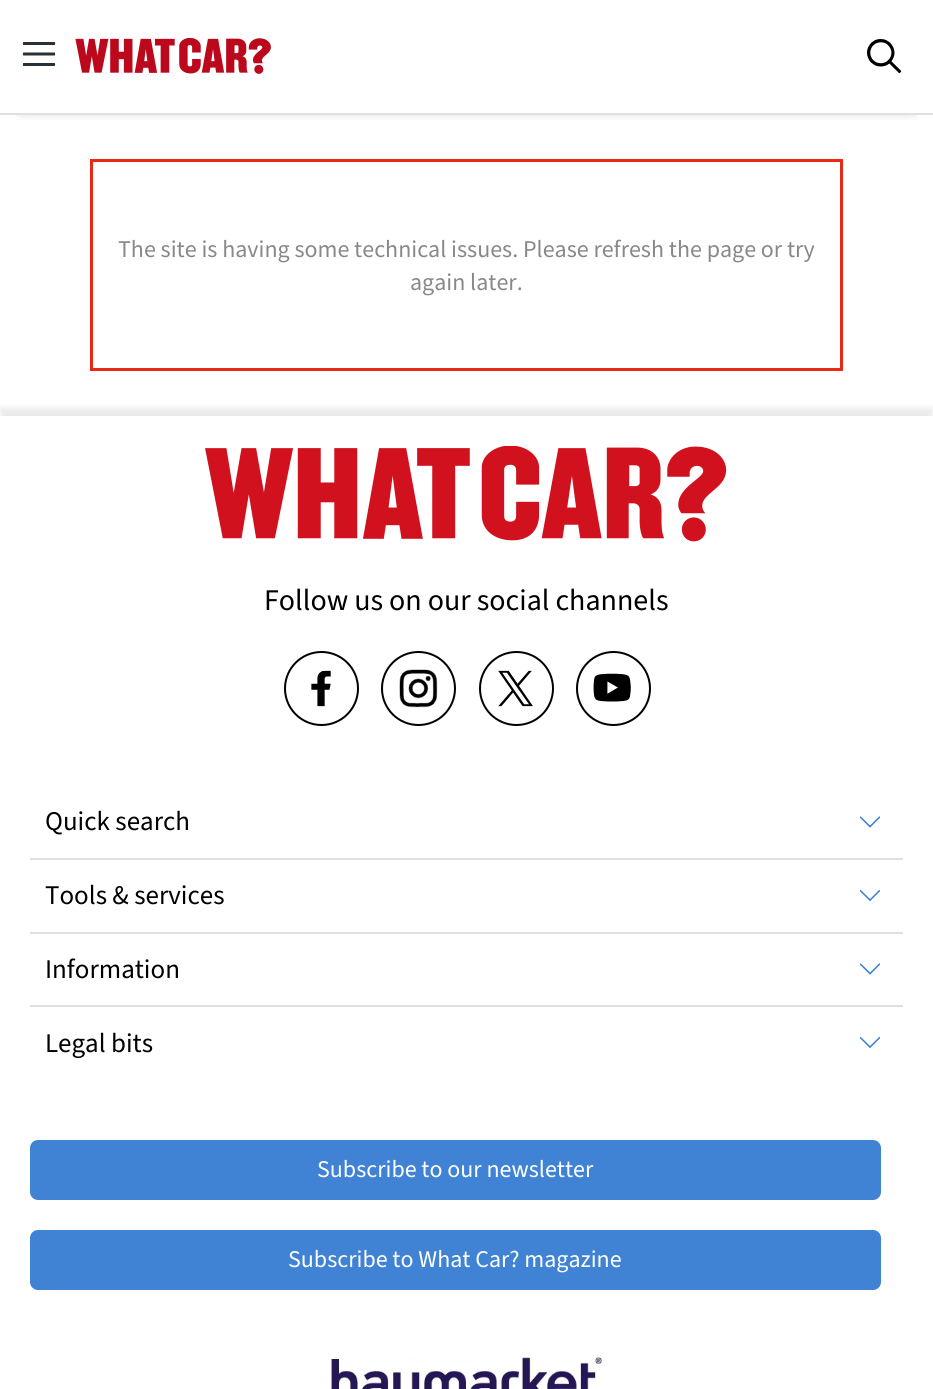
#include <cairo/cairo.h>
#include <math.h>
#include <stddef.h>

typedef struct { double x, y; const char *s; } line_t;
static cairo_t *cr;

static void rgb(unsigned color)
{
	cairo_set_source_rgb(cr, (color >> 16) / 255.0, (color >> 8 & 255) / 255.0, (color & 255) / 255.0);
}

static void rrect(double x, double y, double w, double h, double r)
{
	cairo_new_sub_path(cr);
	cairo_arc(cr, x + w - r, y + h - r, r, 0, M_PI / 2);
	cairo_arc(cr, x + r, y + h - r, r, M_PI / 2, M_PI);
	cairo_arc(cr, x + r, y + r, r, M_PI, 1.5 * M_PI);
	cairo_arc(cr, x + w - r, y + r, r, 1.5 * M_PI, 2 * M_PI);
	cairo_close_path(cr);
}

static void soft_shadow(double x, double y, double w, double h, double r, double blur, double alpha)
{
	cairo_push_group_with_content(cr, CAIRO_CONTENT_ALPHA);
	cairo_set_operator(cr, CAIRO_OPERATOR_SOURCE);
	for (int i = 15; i >= -15 && fmin(w, h) + blur * i / 3 > 0; i -= 2) {
		double e = blur * i / 6;
		cairo_set_source_rgba(cr, 0, 0, 0, alpha * erfc((i - 1) / 8.5) / 2);
		rrect(x - e, y - e, w + 2 * e, h + 2 * e, fmax(0, fmin(r + e + blur * .6, fmin(w, h) / 2 + e)));
		cairo_fill(cr);
	}
	cairo_pattern_t *soft = cairo_pop_group(cr);
	cairo_mask(cr, soft);
	cairo_pattern_destroy(soft);
}

static void image(const char *path, double x, double y, double w, double h)
{
	cairo_surface_t *image = cairo_image_surface_create_from_png(path);
	cairo_save(cr);
	cairo_set_source_surface(cr, image, x, y);
	cairo_rectangle(cr, x, y, w, h);
	cairo_fill(cr);
	cairo_restore(cr);
	cairo_surface_destroy(image);
}

int main(void) {
	cairo_surface_t *surface = cairo_image_surface_create(CAIRO_FORMAT_RGB24, 933, 1389);
	cr = cairo_create(surface);
	cairo_font_options_t *options = cairo_font_options_create();
	cairo_font_options_set_hint_metrics(options, CAIRO_HINT_METRICS_OFF);
	cairo_font_options_set_hint_style(options, CAIRO_HINT_STYLE_NONE);
	cairo_set_font_options(cr, options);
	cairo_set_miter_limit(cr, 4);
	rgb(0xffffff);
	cairo_paint(cr);
	cairo_save(cr);
	cairo_rectangle(cr, 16, 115, 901, 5);
	cairo_clip(cr);
	rgb(0x202020);
	soft_shadow(21, 30, 891, 72, 0, 9, 1);
	cairo_restore(cr);
	rgb(0xe0e0e0);
	cairo_rectangle(cr, 0, 113, 933, 2);
	cairo_fill(cr);
	image("img/1.png", 22, 42, 34, 24);
	image("img/2.png", 75, 38, 196, 36);
	image("img/3.png", 867, 39, 35, 35);
	cairo_rectangle(cr, 91.5, 160.5, 750, 209);
	rgb(0xea2914);
	cairo_set_line_width(cr, 3);
	cairo_stroke(cr);
	cairo_save(cr);
	cairo_rectangle(cr, 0, 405, 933, 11);
	cairo_clip(cr);
	rgb(0x202020);
	soft_shadow(0, 408, 933, 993, 0, 4, 0.1);
	cairo_restore(cr);
	image("img/4.png", 205, 446, 522, 96);
	cairo_arc(cr, 321.5, 688.5, 36.5, 0, 2 * M_PI);
	rgb(0x000000);
	cairo_set_line_width(cr, 2);
	cairo_stroke(cr);
	image("img/5.png", 311, 670, 20, 37);
	cairo_arc(cr, 418.5, 688.5, 36.5, 0, 2 * M_PI);
	cairo_stroke(cr);
	image("img/6.png", 399, 669, 39, 39);
	cairo_arc(cr, 516.5, 688.5, 36.5, 0, 2 * M_PI);
	cairo_stroke(cr);
	image("img/7.png", 498, 670, 35, 37);
	cairo_arc(cr, 613.5, 688.5, 36.5, 0, 2 * M_PI);
	cairo_stroke(cr);
	image("img/8.png", 593, 673, 38, 29);
	rgb(0xe0e0e0);
	cairo_rectangle(cr, 30, 858, 873, 2);
	cairo_fill(cr);
	image("img/9.png", 859, 816, 22, 12);
	cairo_rectangle(cr, 30, 932, 873, 2);
	cairo_fill(cr);
	image("img/10.png", 859, 889, 22, 13);
	cairo_rectangle(cr, 30, 1005, 873, 2);
	cairo_fill(cr);
	image("img/9.png", 859, 963, 22, 12);
	image("img/10.png", 859, 1036, 22, 13);
	rgb(0x4083d5);
	rrect(30, 1140, 851, 60, 8);
	cairo_fill(cr);
	rrect(30, 1230, 851, 60, 8);
	cairo_fill(cr);
	image("img/11.png", 331, 1357, 271, 32);
	cairo_select_font_face(cr, "Source Sans Pro", CAIRO_FONT_SLANT_NORMAL, CAIRO_FONT_WEIGHT_NORMAL);
	cairo_set_font_size(cr, 24);
	rgb(0x898888);
	cairo_move_to(cr, 118, 257);
	cairo_show_text(cr, "The site is having some technical issues. Please refresh the page or try");
	cairo_move_to(cr, 410, 290);
	cairo_show_text(cr, "again later.");
	cairo_select_font_face(cr, "Source Sans 3", CAIRO_FONT_SLANT_NORMAL, CAIRO_FONT_WEIGHT_NORMAL);
	cairo_set_font_size(cr, 30);
	rgb(0x000000);
	cairo_move_to(cr, 264, 610);
	cairo_show_text(cr, "Follow us on our social channels");
	cairo_set_font_size(cr, 27);
	{
		static const line_t items[] = {
			{45, 830, "Quick search"},
			{45, 904, "Tools & services"},
			{45, 978, "Information"},
			{45, 1052, "Legal bits"},
		};
		for (size_t i = 0; i < sizeof items / sizeof *items; i++) {
			cairo_move_to(cr, items[i].x, items[i].y);
			cairo_show_text(cr, items[i].s);
		}
	}
	cairo_set_font_size(cr, 24);
	rgb(0xffffff);
	cairo_move_to(cr, 317, 1177);
	cairo_show_text(cr, "Subscribe to our newsletter");
	cairo_move_to(cr, 288, 1267);
	cairo_show_text(cr, "Subscribe to What Car? magazine");
	cairo_surface_write_to_png(surface, "page.png");
	cairo_font_options_destroy(options);
	cairo_destroy(cr);
	cairo_surface_destroy(surface);
	return 0;
}
